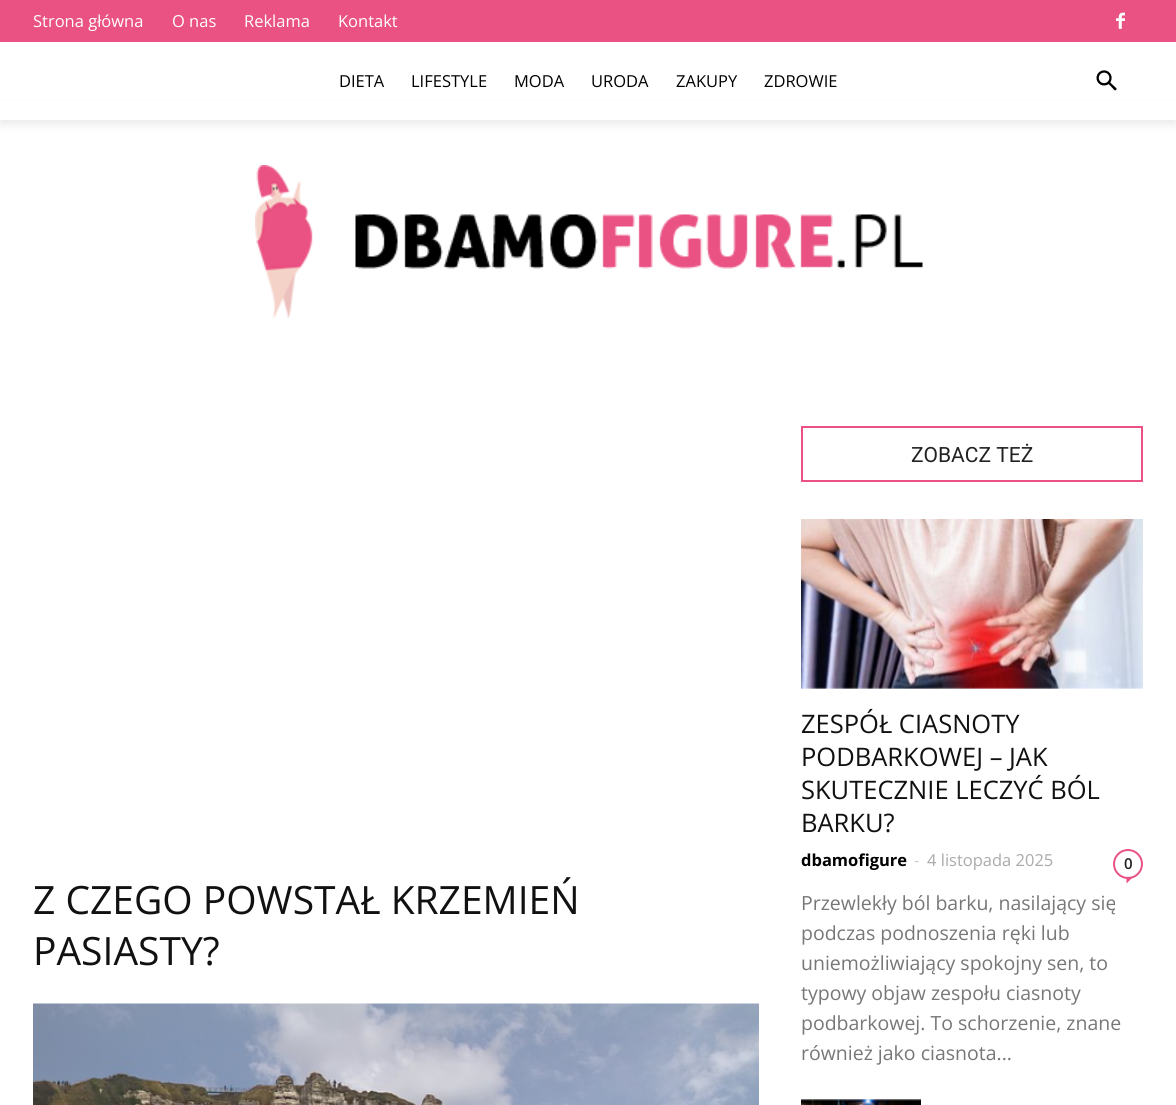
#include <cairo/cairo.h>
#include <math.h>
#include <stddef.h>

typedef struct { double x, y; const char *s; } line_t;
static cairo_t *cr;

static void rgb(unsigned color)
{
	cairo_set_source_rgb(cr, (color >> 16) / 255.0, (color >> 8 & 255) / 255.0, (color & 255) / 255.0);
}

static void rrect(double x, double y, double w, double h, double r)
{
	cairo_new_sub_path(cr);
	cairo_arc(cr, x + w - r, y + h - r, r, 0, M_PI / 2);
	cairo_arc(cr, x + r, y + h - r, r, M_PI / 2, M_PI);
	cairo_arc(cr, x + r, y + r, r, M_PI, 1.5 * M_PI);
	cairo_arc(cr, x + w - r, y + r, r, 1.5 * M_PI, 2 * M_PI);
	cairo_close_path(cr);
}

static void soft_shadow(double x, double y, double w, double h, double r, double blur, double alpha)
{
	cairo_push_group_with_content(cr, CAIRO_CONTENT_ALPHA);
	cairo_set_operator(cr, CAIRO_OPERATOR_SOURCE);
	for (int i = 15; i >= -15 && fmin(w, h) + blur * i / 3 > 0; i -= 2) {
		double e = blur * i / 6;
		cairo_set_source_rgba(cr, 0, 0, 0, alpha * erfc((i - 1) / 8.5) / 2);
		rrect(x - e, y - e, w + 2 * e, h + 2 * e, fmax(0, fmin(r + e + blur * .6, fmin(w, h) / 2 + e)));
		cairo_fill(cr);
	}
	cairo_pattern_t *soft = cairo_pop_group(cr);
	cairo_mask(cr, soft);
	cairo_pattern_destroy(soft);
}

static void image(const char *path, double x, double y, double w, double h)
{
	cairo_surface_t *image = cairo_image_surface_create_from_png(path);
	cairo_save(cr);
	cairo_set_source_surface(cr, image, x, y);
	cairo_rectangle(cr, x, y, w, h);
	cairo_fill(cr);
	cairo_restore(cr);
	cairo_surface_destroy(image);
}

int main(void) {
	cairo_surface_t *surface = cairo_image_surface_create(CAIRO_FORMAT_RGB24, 1176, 1105);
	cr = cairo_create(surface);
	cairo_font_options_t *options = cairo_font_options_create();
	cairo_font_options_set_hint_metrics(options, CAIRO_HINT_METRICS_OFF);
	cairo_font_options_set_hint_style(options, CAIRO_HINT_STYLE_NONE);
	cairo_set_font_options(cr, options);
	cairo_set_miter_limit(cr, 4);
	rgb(0xffffff);
	cairo_paint(cr);
	rgb(0xe95282);
	cairo_rectangle(cr, 0, 0, 1176, 42);
	cairo_fill(cr);
	image("img/1.png", 1116, 12, 9, 17);
	image("img/2.png", 1096, 70, 21, 21);
	cairo_save(cr);
	cairo_set_fill_rule(cr, CAIRO_FILL_RULE_EVEN_ODD);
	cairo_new_path(cr);
	cairo_move_to(cr, 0, 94);
	cairo_line_to(cr, 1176, 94);
	cairo_line_to(cr, 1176, 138);
	cairo_line_to(cr, 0, 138);
	cairo_close_path(cr);
	cairo_move_to(cr, 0, 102);
	cairo_line_to(cr, 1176, 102);
	cairo_line_to(cr, 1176, 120);
	cairo_line_to(cr, 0, 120);
	cairo_close_path(cr);
	cairo_clip(cr);
	rgb(0xbebebe);
	soft_shadow(0, 107, 1176, 18, 0, 4, 0.3);
	cairo_restore(cr);
	image("img/3.png", 255, 165, 668, 153);
	image("img/4.png", 33, 1003, 726, 102);
	cairo_rectangle(cr, 802, 427, 340, 54);
	cairo_stroke(cr);
	image("img/5.png", 801, 519, 342, 170);
	cairo_arc(cr, 1128, 864, 14, 0, 2 * M_PI);
	cairo_stroke(cr);
	cairo_new_path(cr);
	cairo_move_to(cr, 1126.5, 877.5);
	cairo_line_to(cr, 1132.5, 877.5);
	cairo_line_to(cr, 1126.5, 883.5);
	cairo_close_path(cr);
	cairo_fill(cr);
	image("img/6.png", 801, 1099, 120, 6);
	cairo_select_font_face(cr, "Open Sans", CAIRO_FONT_SLANT_NORMAL, CAIRO_FONT_WEIGHT_NORMAL);
	cairo_set_font_size(cr, 16.5);
	rgb(0xffffff);
	{
		static const line_t items[] = {
			{33, 27, "Strona główna"},
			{172, 27, "O nas"},
			{244, 27, "Reklama"},
			{338, 27, "Kontakt"},
		};
		for (size_t i = 0; i < sizeof items / sizeof *items; i++) {
			cairo_move_to(cr, items[i].x, items[i].y);
			cairo_show_text(cr, items[i].s);
		}
	}
	rgb(0x000000);
	{
		static const line_t items[] = {
			{339, 87, "DIETA"},
			{411, 87, "LIFESTYLE"},
			{514, 87, "MODA"},
			{591, 87, "URODA"},
			{676, 87, "ZAKUPY"},
			{764, 87, "ZDROWIE"},
		};
		for (size_t i = 0; i < sizeof items / sizeof *items; i++) {
			cairo_move_to(cr, items[i].x, items[i].y);
			cairo_show_text(cr, items[i].s);
		}
	}
	cairo_set_font_size(cr, 39);
	rgb(0x111111);
	cairo_move_to(cr, 33, 914);
	cairo_show_text(cr, "Z CZEGO POWSTAŁ KRZEMIEŃ");
	cairo_move_to(cr, 33, 965);
	cairo_show_text(cr, "PASIASTY?");
	cairo_select_font_face(cr, "Roboto", CAIRO_FONT_SLANT_NORMAL, CAIRO_FONT_WEIGHT_NORMAL);
	cairo_set_font_size(cr, 21);
	rgb(0x222222);
	cairo_move_to(cr, 911, 462);
	cairo_show_text(cr, "ZOBACZ TEŻ");
	cairo_select_font_face(cr, "Open Sans", CAIRO_FONT_SLANT_NORMAL, CAIRO_FONT_WEIGHT_NORMAL);
	cairo_set_font_size(cr, 25.5);
	rgb(0x111111);
	{
		static const line_t items[] = {
			{801, 733, "ZESPÓŁ CIASNOTY"},
			{801, 766, "PODBARKOWEJ – JAK"},
			{801, 799, "SKUTECZNIE LECZYĆ BÓL"},
			{801, 832, "BARKU?"},
		};
		for (size_t i = 0; i < sizeof items / sizeof *items; i++) {
			cairo_move_to(cr, items[i].x, items[i].y);
			cairo_show_text(cr, items[i].s);
		}
	}
	cairo_select_font_face(cr, "Open Sans", CAIRO_FONT_SLANT_NORMAL, CAIRO_FONT_WEIGHT_BOLD);
	cairo_set_font_size(cr, 16.5);
	rgb(0x000000);
	cairo_move_to(cr, 801, 866);
	cairo_show_text(cr, "dbamofigure");
	cairo_select_font_face(cr, "Open Sans", CAIRO_FONT_SLANT_NORMAL, CAIRO_FONT_WEIGHT_NORMAL);
	rgb(0xcccccc);
	cairo_move_to(cr, 914, 866);
	cairo_show_text(cr, "-");
	rgb(0xaaaaaa);
	cairo_move_to(cr, 927, 866);
	cairo_show_text(cr, "4 listopada 2025");
	cairo_select_font_face(cr, "Open Sans SemiBold", CAIRO_FONT_SLANT_NORMAL, CAIRO_FONT_WEIGHT_NORMAL);
	cairo_set_font_size(cr, 15);
	rgb(0x222222);
	cairo_move_to(cr, 1124, 869);
	cairo_show_text(cr, "0");
	cairo_select_font_face(cr, "Open Sans", CAIRO_FONT_SLANT_NORMAL, CAIRO_FONT_WEIGHT_NORMAL);
	cairo_set_font_size(cr, 19.5);
	rgb(0x777777);
	{
		static const line_t items[] = {
			{801, 910, "Przewlekły ból barku, nasilający się"},
			{801, 940, "podczas podnoszenia ręki lub"},
			{801, 970, "uniemożliwiający spokojny sen, to"},
			{801, 1000, "typowy objaw zespołu ciasnoty"},
			{801, 1030, "podbarkowej. To schorzenie, znane"},
			{801, 1060, "również jako ciasnota..."},
		};
		for (size_t i = 0; i < sizeof items / sizeof *items; i++) {
			cairo_move_to(cr, items[i].x, items[i].y);
			cairo_show_text(cr, items[i].s);
		}
	}
	cairo_surface_write_to_png(surface, "page.png");
	cairo_font_options_destroy(options);
	cairo_destroy(cr);
	cairo_surface_destroy(surface);
	return 0;
}
